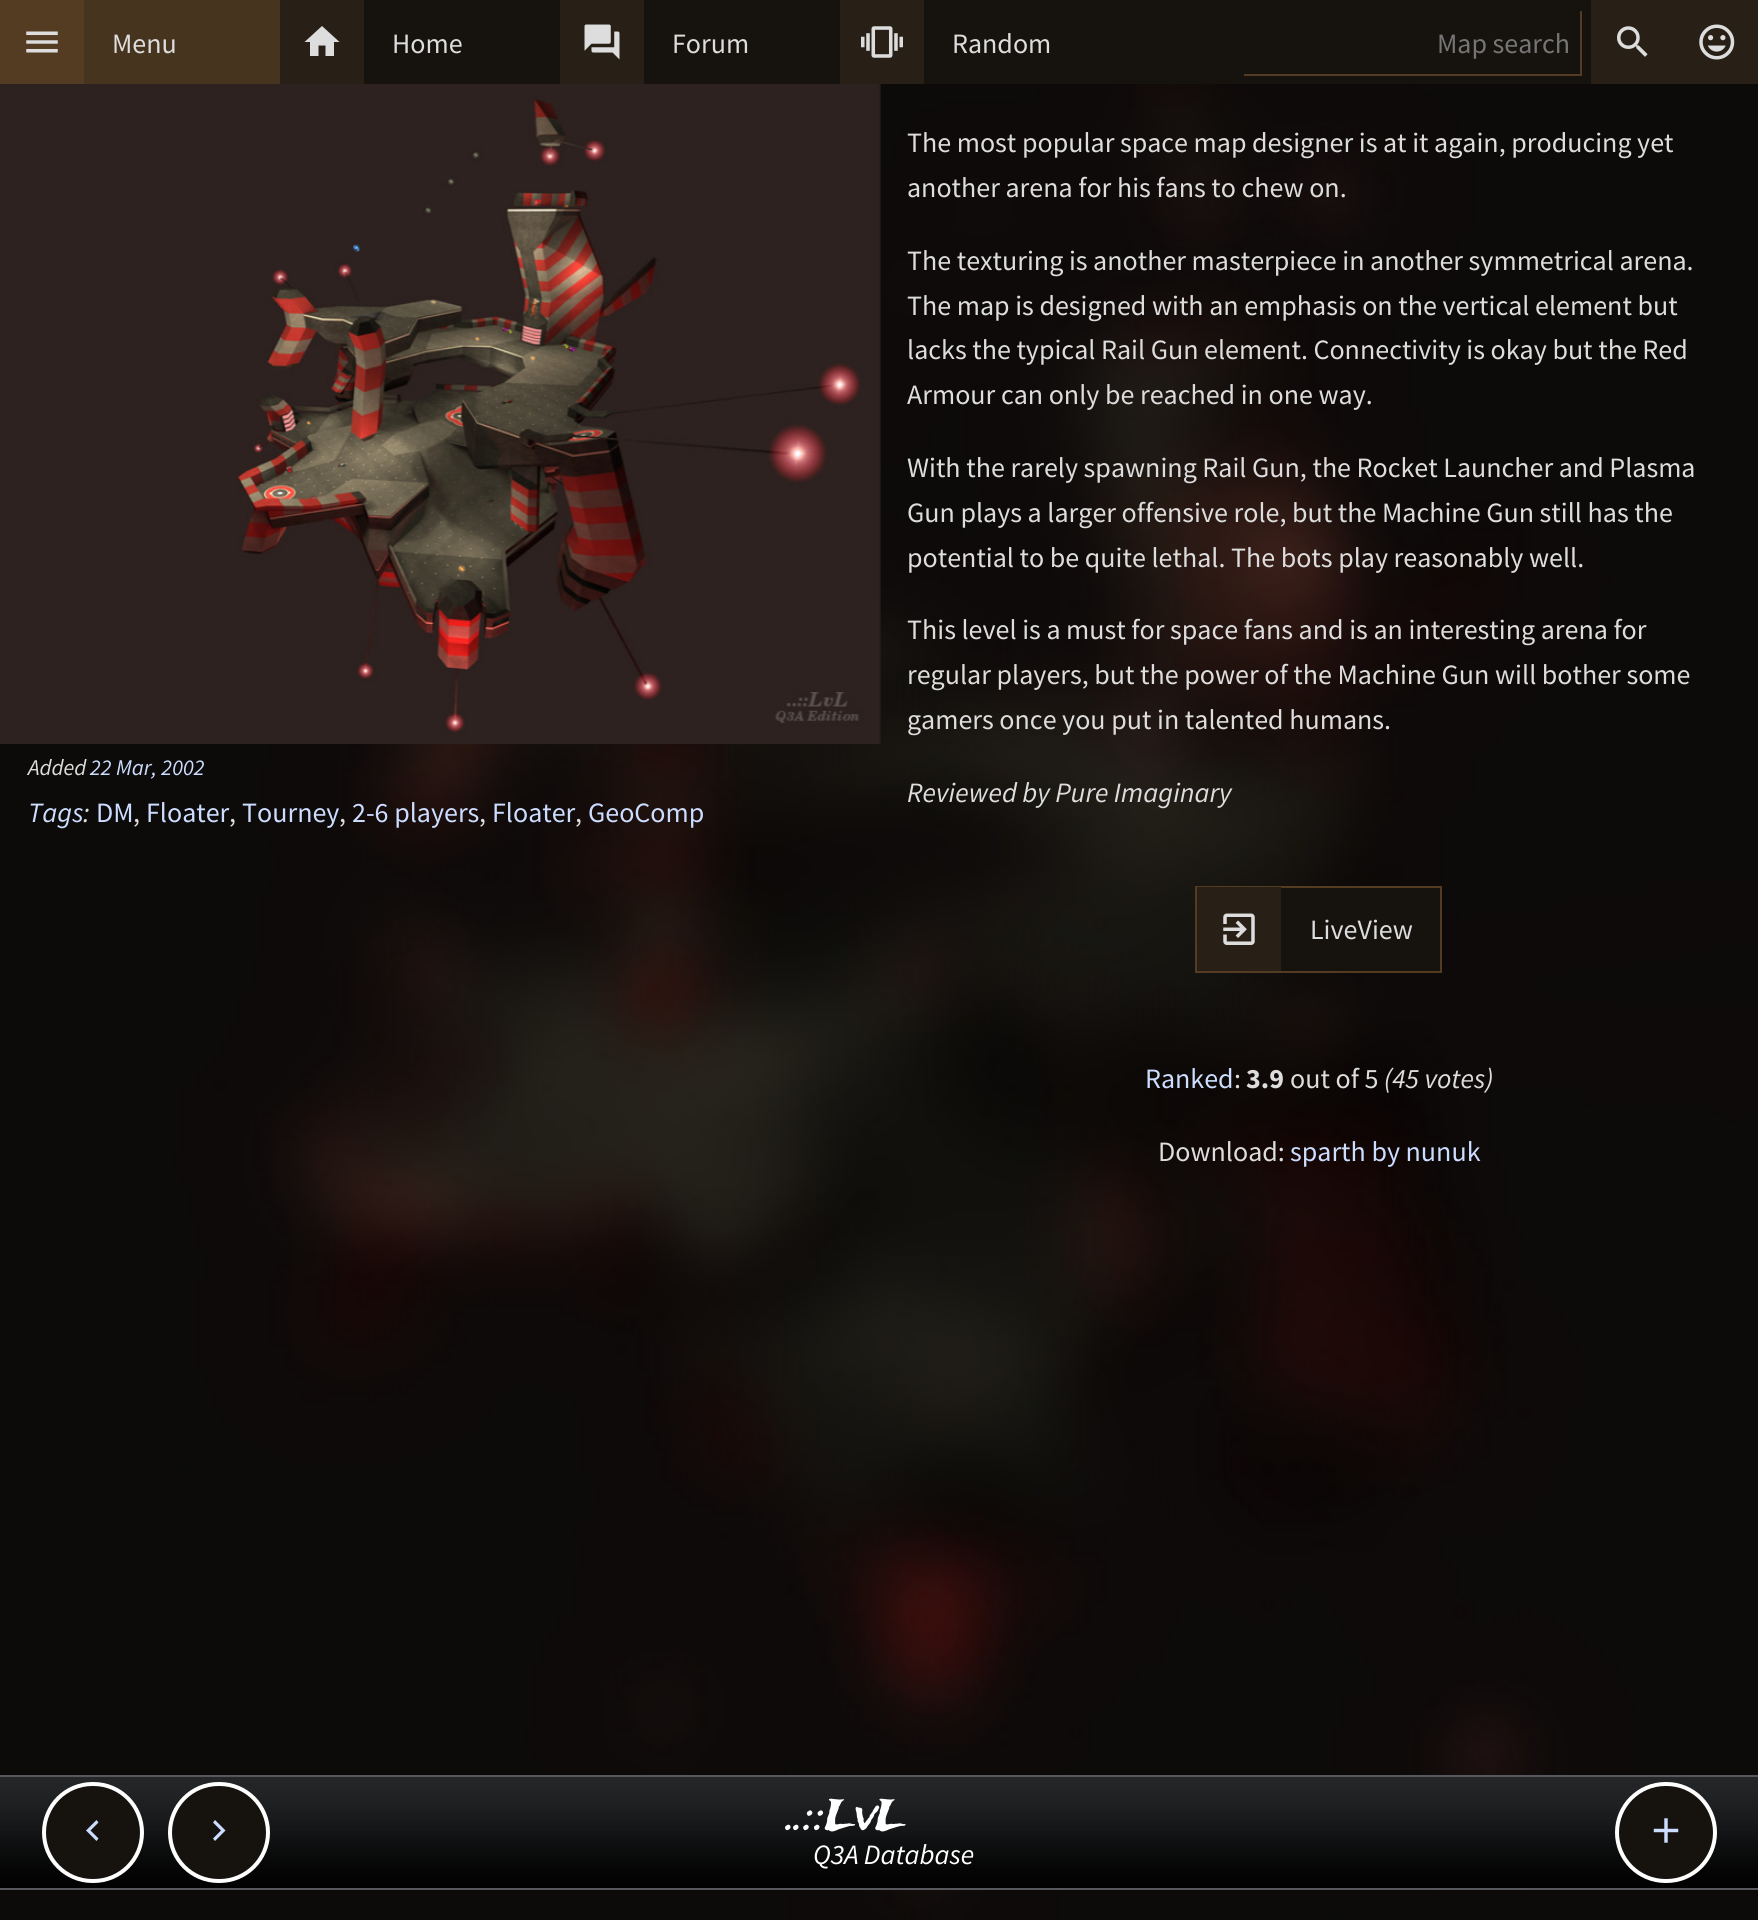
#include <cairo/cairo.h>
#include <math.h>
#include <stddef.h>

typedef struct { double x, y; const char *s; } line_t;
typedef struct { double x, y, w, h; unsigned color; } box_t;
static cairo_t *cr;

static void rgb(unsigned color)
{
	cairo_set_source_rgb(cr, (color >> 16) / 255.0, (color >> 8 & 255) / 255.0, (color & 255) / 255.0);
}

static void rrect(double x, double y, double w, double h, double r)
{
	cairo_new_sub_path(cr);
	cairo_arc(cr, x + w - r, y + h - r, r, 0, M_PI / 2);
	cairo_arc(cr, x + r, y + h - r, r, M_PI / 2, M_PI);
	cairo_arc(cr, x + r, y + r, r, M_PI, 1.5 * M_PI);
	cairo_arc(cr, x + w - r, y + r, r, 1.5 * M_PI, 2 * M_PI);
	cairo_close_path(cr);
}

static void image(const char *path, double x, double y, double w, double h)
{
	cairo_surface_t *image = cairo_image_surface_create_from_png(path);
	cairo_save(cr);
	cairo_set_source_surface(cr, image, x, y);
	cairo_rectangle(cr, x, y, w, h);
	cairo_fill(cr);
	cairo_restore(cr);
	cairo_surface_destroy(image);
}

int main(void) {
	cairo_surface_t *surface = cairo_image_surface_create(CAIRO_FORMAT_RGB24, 1758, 1920);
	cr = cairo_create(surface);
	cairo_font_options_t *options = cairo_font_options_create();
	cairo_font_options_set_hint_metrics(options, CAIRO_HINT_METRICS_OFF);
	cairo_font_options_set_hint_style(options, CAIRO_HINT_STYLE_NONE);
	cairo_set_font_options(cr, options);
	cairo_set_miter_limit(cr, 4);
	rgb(0xffffff);
	cairo_paint(cr);
	rgb(0x16130f);
	cairo_rectangle(cr, 364, 0, 1227, 84);
	cairo_fill(cr);
	rgb(0x543c22);
	cairo_rectangle(cr, 0, 0, 84, 84);
	cairo_fill(cr);
	image("img/1.png", 26, 31, 32, 22);
	rgb(0x47341f);
	cairo_rectangle(cr, 84, 0, 196, 84);
	cairo_fill(cr);
	rgb(0x282016);
	cairo_rectangle(cr, 280, 0, 84, 84);
	cairo_fill(cr);
	rgb(0xdddddd);
	cairo_new_path(cr);
	cairo_move_to(cr, 318.5, 56);
	cairo_line_to(cr, 310, 56);
	cairo_line_to(cr, 310, 42);
	cairo_line_to(cr, 304.5, 42);
	cairo_line_to(cr, 322, 26);
	cairo_line_to(cr, 339.5, 42);
	cairo_line_to(cr, 334, 42);
	cairo_line_to(cr, 334, 56);
	cairo_line_to(cr, 325.5, 56);
	cairo_line_to(cr, 325.5, 45.5);
	cairo_line_to(cr, 318.5, 45.5);
	cairo_close_path(cr);
	cairo_fill(cr);
	rgb(0x282016);
	cairo_rectangle(cr, 560, 0, 84, 84);
	cairo_fill(cr);
	image("img/2.png", 584, 24, 36, 36);
	cairo_rectangle(cr, 840, 0, 84, 84);
	cairo_fill(cr);
	image("img/3.png", 861, 26, 42, 32);
	{
		static const box_t items[] = {
			{1580, 11, 2, 64, 0x543c22},
			{1244, 74, 338, 2, 0x543c22},
			{1591, 0, 167, 84, 0x282016},
		};
		for (size_t i = 0; i < sizeof items / sizeof *items; i++) {
			rgb(items[i].color);
			cairo_rectangle(cr, items[i].x, items[i].y, items[i].w, items[i].h);
			cairo_fill(cr);
		}
	}
	image("img/4.png", 1617, 26, 31, 31);
	image("img/5.png", 1699, 24, 36, 36);
	image("img/6.png", 0, 84, 1758, 1836);
	image("img/7.png", 0, 84, 881, 660);
	rgb(0x16130f);
	cairo_rectangle(cr, 1281, 888, 159, 83);
	cairo_fill(cr);
	cairo_rectangle(cr, 1196, 887, 245, 85);
	rgb(0x543c22);
	cairo_stroke(cr);
	rgb(0x282016);
	cairo_rectangle(cr, 1197, 887, 84, 84);
	cairo_fill(cr);
	image("img/8.png", 1223, 913, 32, 32);
	image("img/10.png", 0, 1777, 1758, 111);
	rgb(0x16130f);
	rrect(44, 1784, 98, 97, 48.5);
	cairo_fill_preserve(cr);
	rgb(0xffffff);
	cairo_set_line_width(cr, 4);
	cairo_stroke(cr);
	rgb(0xccddff);
	cairo_new_path(cr);
	cairo_move_to(cr, 98.5, 1822.5);
	cairo_line_to(cr, 90.5, 1830.5);
	cairo_line_to(cr, 98.5, 1838.5);
	cairo_line_to(cr, 96.5, 1841);
	cairo_line_to(cr, 86, 1830.5);
	cairo_line_to(cr, 96.5, 1820);
	cairo_close_path(cr);
	cairo_fill(cr);
	rgb(0x16130f);
	rrect(170, 1784, 98, 97, 48.5);
	cairo_fill_preserve(cr);
	rgb(0xffffff);
	cairo_stroke(cr);
	rgb(0xccddff);
	cairo_new_path(cr);
	cairo_move_to(cr, 215, 1820);
	cairo_line_to(cr, 225.5, 1830.5);
	cairo_line_to(cr, 215, 1841);
	cairo_line_to(cr, 213, 1838.5);
	cairo_line_to(cr, 221, 1830.5);
	cairo_line_to(cr, 213, 1822.5);
	cairo_close_path(cr);
	cairo_fill(cr);
	rgb(0x16130f);
	rrect(1617, 1784, 98, 97, 48.5);
	cairo_fill_preserve(cr);
	rgb(0xffffff);
	cairo_stroke(cr);
	image("img/9.png", 1653, 1818, 26, 25);
	rgb(0x56585d);
	cairo_rectangle(cr, 0, 1775, 1758, 2);
	cairo_fill(cr);
	cairo_rectangle(cr, 0, 1888, 1758, 2);
	cairo_fill(cr);
	cairo_select_font_face(cr, "Source Sans Pro", CAIRO_FONT_SLANT_NORMAL, CAIRO_FONT_WEIGHT_NORMAL);
	cairo_set_font_size(cr, 28);
	rgb(0xdddddd);
	{
		static const line_t items[] = {
			{112, 53, "Menu"},
			{392, 53, "Home"},
			{672, 53, "Forum"},
			{952, 53, "Random"},
		};
		for (size_t i = 0; i < sizeof items / sizeof *items; i++) {
			cairo_move_to(cr, items[i].x, items[i].y);
			cairo_show_text(cr, items[i].s);
		}
	}
	rgb(0x757575);
	cairo_move_to(cr, 1437, 53);
	cairo_show_text(cr, "Map search");
	cairo_select_font_face(cr, "Source Sans Pro", CAIRO_FONT_SLANT_ITALIC, CAIRO_FONT_WEIGHT_NORMAL);
	cairo_set_font_size(cr, 22.5);
	rgb(0xdddddd);
	cairo_move_to(cr, 28, 775);
	cairo_show_text(cr, "Added");
	rgb(0xccddff);
	cairo_move_to(cr, 90, 775);
	cairo_show_text(cr, "22 Mar, 2002");
	cairo_set_font_size(cr, 28);
	cairo_move_to(cr, 28, 822);
	cairo_show_text(cr, "Tags");
	rgb(0xdddddd);
	cairo_move_to(cr, 83, 822);
	cairo_show_text(cr, ":");
	cairo_select_font_face(cr, "Source Sans Pro", CAIRO_FONT_SLANT_NORMAL, CAIRO_FONT_WEIGHT_NORMAL);
	rgb(0xccddff);
	cairo_move_to(cr, 96, 822);
	cairo_show_text(cr, "DM");
	rgb(0xdddddd);
	cairo_move_to(cr, 133, 822);
	cairo_show_text(cr, ",");
	rgb(0xccddff);
	cairo_move_to(cr, 146, 822);
	cairo_show_text(cr, "Floater");
	rgb(0xdddddd);
	cairo_move_to(cr, 229, 822);
	cairo_show_text(cr, ",");
	rgb(0xccddff);
	cairo_move_to(cr, 242, 822);
	cairo_show_text(cr, "Tourney");
	rgb(0xdddddd);
	cairo_move_to(cr, 339, 822);
	cairo_show_text(cr, ",");
	rgb(0xccddff);
	cairo_move_to(cr, 352, 822);
	cairo_show_text(cr, "2-6 players");
	rgb(0xdddddd);
	cairo_move_to(cr, 479, 822);
	cairo_show_text(cr, ",");
	rgb(0xccddff);
	cairo_move_to(cr, 492, 822);
	cairo_show_text(cr, "Floater");
	rgb(0xdddddd);
	cairo_move_to(cr, 575, 822);
	cairo_show_text(cr, ",");
	rgb(0xccddff);
	cairo_move_to(cr, 588, 822);
	cairo_show_text(cr, "GeoComp");
	rgb(0xdddddd);
	{
		static const line_t items[] = {
			{907, 152, "The most popular space map designer is at it again, producing yet"},
			{907, 197, "another arena for his fans to chew on."},
			{907, 270, "The texturing is another masterpiece in another symmetrical arena."},
			{907, 315, "The map is designed with an emphasis on the vertical element but"},
			{907, 359, "lacks the typical Rail Gun element. Connectivity is okay but the Red"},
			{907, 404, "Armour can only be reached in one way."},
			{907, 477, "With the rarely spawning Rail Gun, the Rocket Launcher and Plasma"},
			{907, 522, "Gun plays a larger offensive role, but the Machine Gun still has the"},
			{907, 567, "potential to be quite lethal. The bots play reasonably well."},
			{907, 639, "This level is a must for space fans and is an interesting arena for"},
			{907, 684, "regular players, but the power of the Machine Gun will bother some"},
			{907, 729, "gamers once you put in talented humans."},
		};
		for (size_t i = 0; i < sizeof items / sizeof *items; i++) {
			cairo_move_to(cr, items[i].x, items[i].y);
			cairo_show_text(cr, items[i].s);
		}
	}
	cairo_select_font_face(cr, "Source Sans Pro", CAIRO_FONT_SLANT_ITALIC, CAIRO_FONT_WEIGHT_NORMAL);
	cairo_move_to(cr, 907, 802);
	cairo_show_text(cr, "Reviewed by Pure Imaginary");
	cairo_select_font_face(cr, "Source Sans Pro", CAIRO_FONT_SLANT_NORMAL, CAIRO_FONT_WEIGHT_NORMAL);
	cairo_move_to(cr, 1310, 939);
	cairo_show_text(cr, "LiveView");
	rgb(0xccddff);
	cairo_move_to(cr, 1145, 1088);
	cairo_show_text(cr, "Ranked");
	rgb(0xdddddd);
	cairo_move_to(cr, 1234, 1088);
	cairo_show_text(cr, ":");
	cairo_select_font_face(cr, "Source Sans Pro", CAIRO_FONT_SLANT_NORMAL, CAIRO_FONT_WEIGHT_BOLD);
	cairo_move_to(cr, 1246, 1088);
	cairo_show_text(cr, "3.9");
	cairo_select_font_face(cr, "Source Sans Pro", CAIRO_FONT_SLANT_NORMAL, CAIRO_FONT_WEIGHT_NORMAL);
	cairo_move_to(cr, 1290, 1088);
	cairo_show_text(cr, "out of 5");
	cairo_select_font_face(cr, "Source Sans Pro", CAIRO_FONT_SLANT_ITALIC, CAIRO_FONT_WEIGHT_NORMAL);
	cairo_move_to(cr, 1384, 1088);
	cairo_show_text(cr, "(45 votes)");
	cairo_select_font_face(cr, "Source Sans Pro", CAIRO_FONT_SLANT_NORMAL, CAIRO_FONT_WEIGHT_NORMAL);
	cairo_move_to(cr, 1158, 1161);
	cairo_show_text(cr, "Download:");
	rgb(0xccddff);
	cairo_move_to(cr, 1290, 1161);
	cairo_show_text(cr, "sparth by nunuk");
	cairo_select_font_face(cr, "Trade Winds", CAIRO_FONT_SLANT_NORMAL, CAIRO_FONT_WEIGHT_NORMAL);
	cairo_set_font_size(cr, 42);
	rgb(0xffffff);
	cairo_move_to(cr, 788, 1829);
	cairo_show_text(cr, "..::LvL");
	cairo_select_font_face(cr, "Source Sans Pro", CAIRO_FONT_SLANT_ITALIC, CAIRO_FONT_WEIGHT_NORMAL);
	cairo_set_font_size(cr, 28);
	cairo_move_to(cr, 813, 1864);
	cairo_show_text(cr, "Q3A Database");
	cairo_surface_write_to_png(surface, "page.png");
	cairo_font_options_destroy(options);
	cairo_destroy(cr);
	cairo_surface_destroy(surface);
	return 0;
}
